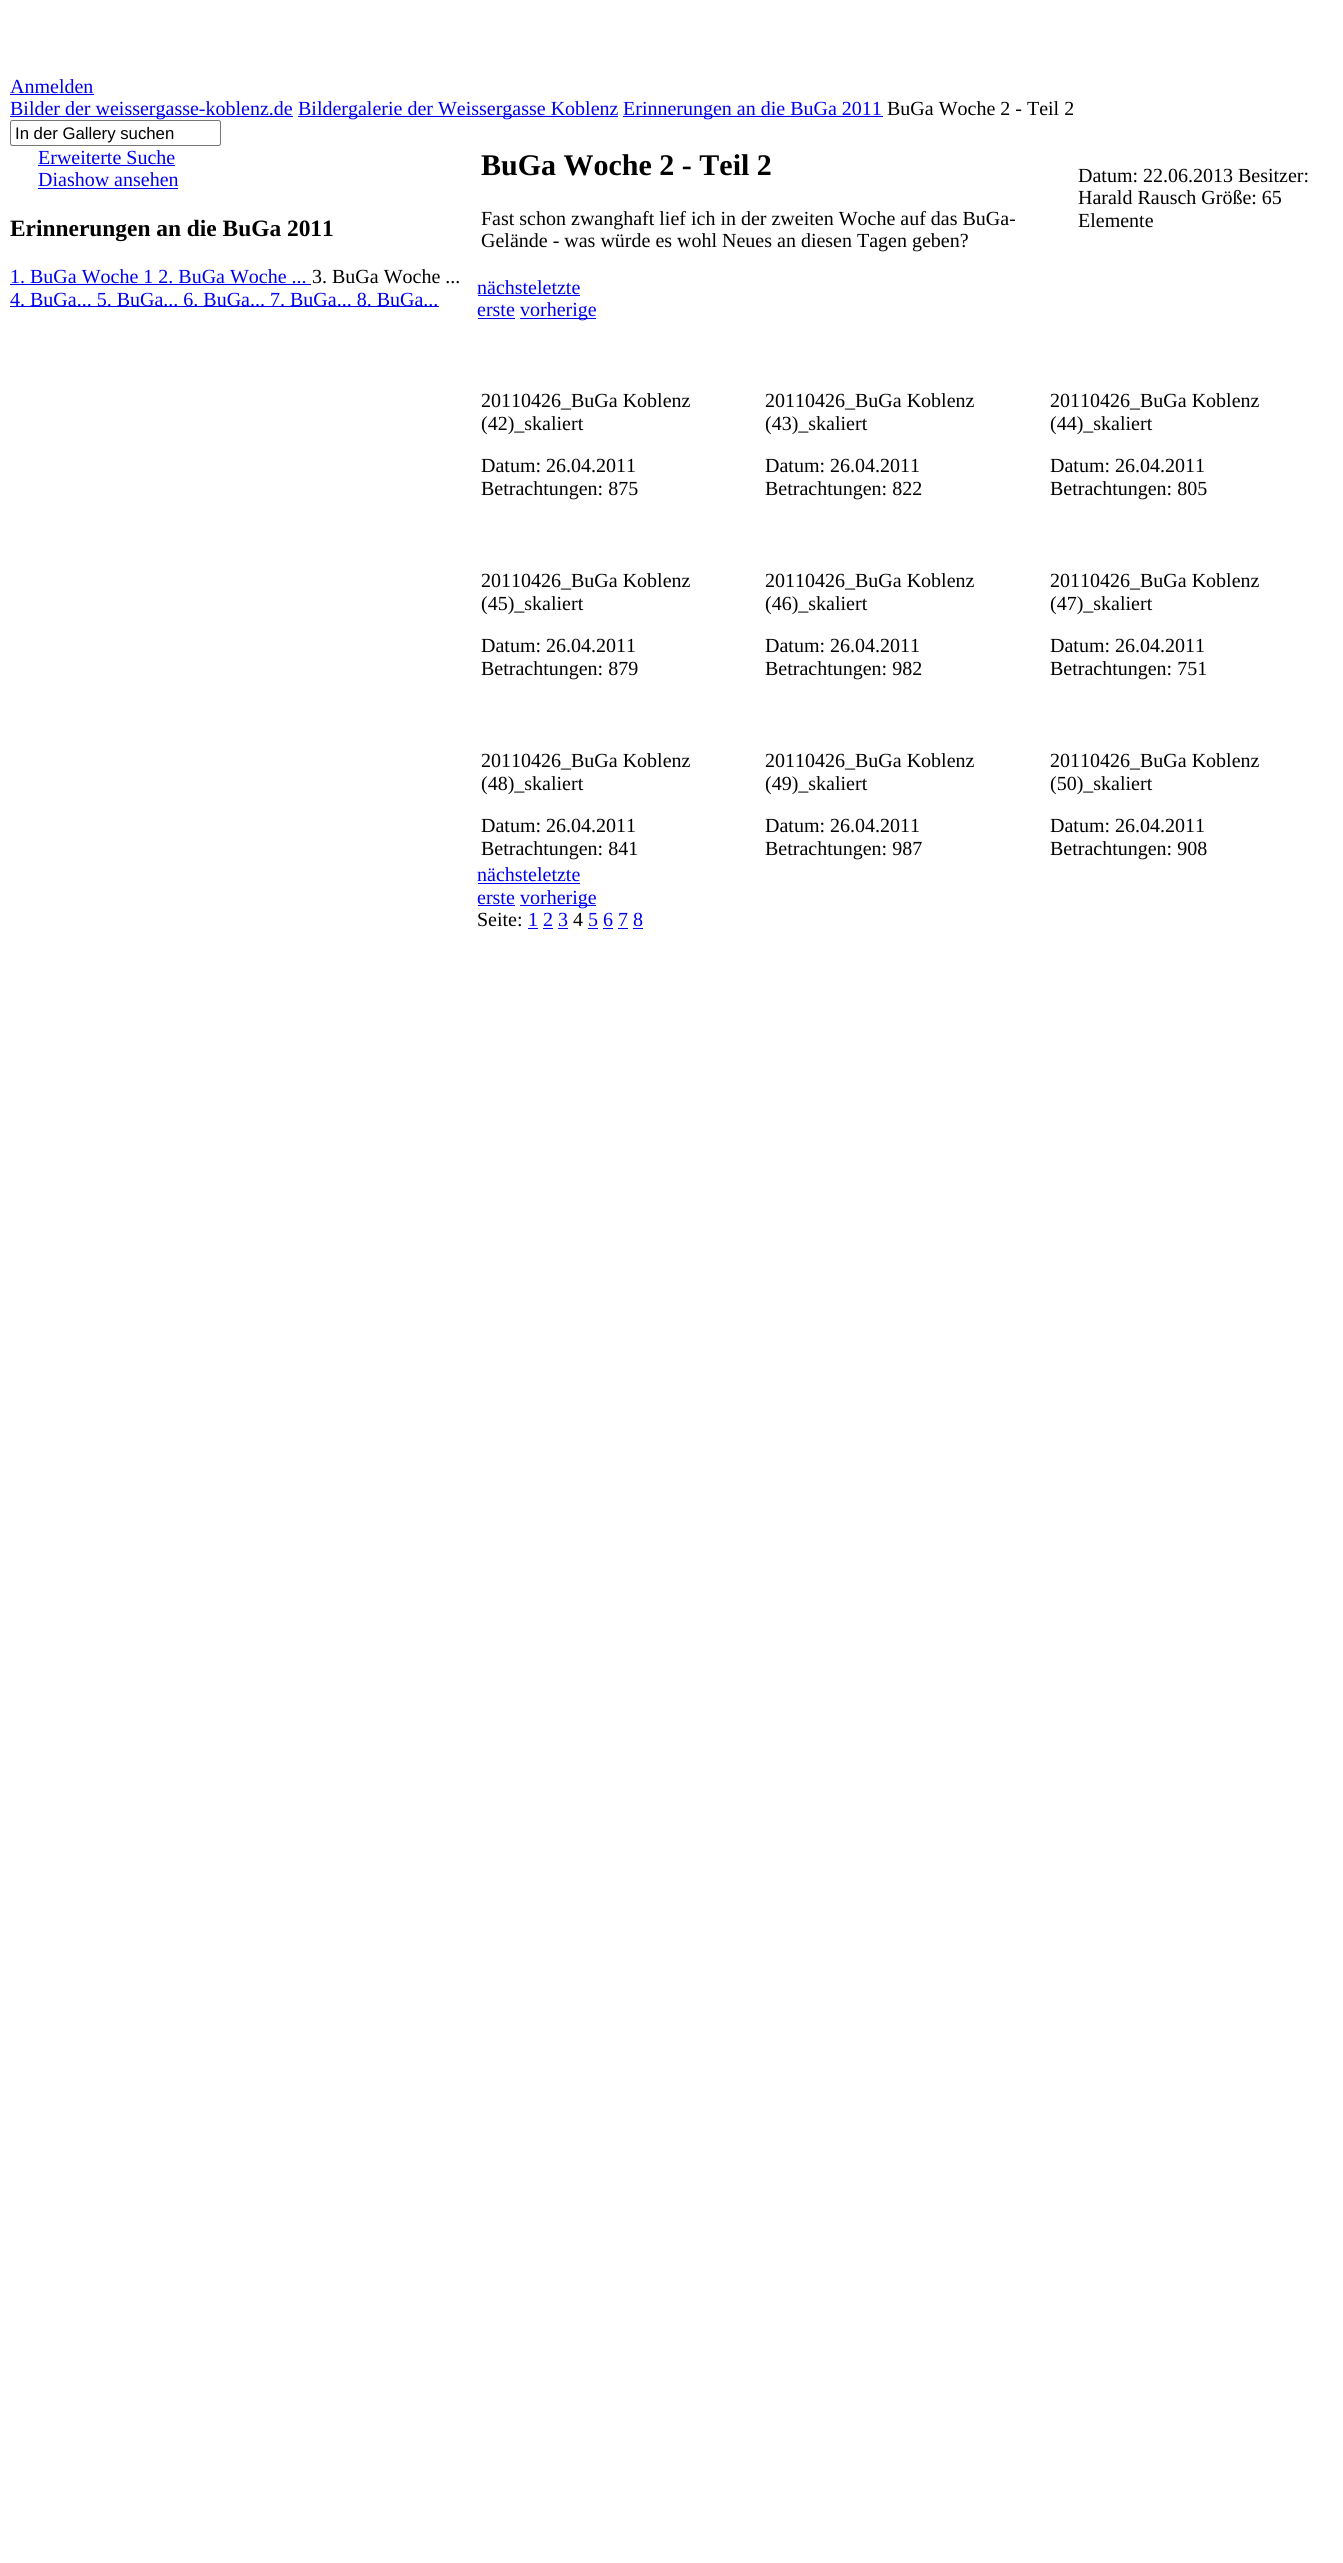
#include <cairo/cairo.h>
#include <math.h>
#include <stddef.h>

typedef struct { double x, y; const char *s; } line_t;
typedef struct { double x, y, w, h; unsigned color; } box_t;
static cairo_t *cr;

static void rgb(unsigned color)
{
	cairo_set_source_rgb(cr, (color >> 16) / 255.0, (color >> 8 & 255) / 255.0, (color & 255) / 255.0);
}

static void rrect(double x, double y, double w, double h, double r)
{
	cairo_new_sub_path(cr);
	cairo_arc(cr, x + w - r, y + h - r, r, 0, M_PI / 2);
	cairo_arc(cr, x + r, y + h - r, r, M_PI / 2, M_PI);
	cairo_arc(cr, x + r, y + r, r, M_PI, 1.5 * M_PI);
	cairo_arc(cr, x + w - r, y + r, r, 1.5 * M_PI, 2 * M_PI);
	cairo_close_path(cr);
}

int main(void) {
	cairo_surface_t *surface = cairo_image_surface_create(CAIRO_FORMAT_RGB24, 1343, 2563);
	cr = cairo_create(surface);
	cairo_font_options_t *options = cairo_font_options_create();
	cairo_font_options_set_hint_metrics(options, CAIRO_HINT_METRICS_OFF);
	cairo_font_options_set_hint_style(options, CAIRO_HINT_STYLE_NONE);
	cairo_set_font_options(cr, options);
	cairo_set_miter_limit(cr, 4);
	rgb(0xffffff);
	cairo_paint(cr);
	{
		static const box_t items[] = {
			{10, 94, 84, 1, 0x0000ee},
			{10, 116, 283, 1, 0x0000ee},
			{298, 116, 320, 1, 0x0000ee},
			{623, 116, 260, 1, 0x0000ee},
		};
		for (size_t i = 0; i < sizeof items / sizeof *items; i++) {
			rgb(items[i].color);
			cairo_rectangle(cr, items[i].x, items[i].y, items[i].w, items[i].h);
			cairo_fill(cr);
		}
	}
	rrect(10.5, 120.5, 210, 25, 2);
	rgb(0x767676);
	cairo_set_line_width(cr, 1);
	cairo_stroke(cr);
	{
		static const box_t items[] = {
			{38, 165, 137, 1, 0x0000ee},
			{38, 188, 140, 1, 0x0000ee},
			{10, 284, 301, 1, 0x0000ee},
			{10, 306, 429, 1, 0x0000ee},
			{478, 295, 102, 1, 0x0000ee},
			{478, 318, 37, 1, 0x0000ee},
			{520, 318, 76, 1, 0x0000ee},
			{478, 883, 102, 1, 0x0000ee},
			{478, 905, 37, 1, 0x0000ee},
			{520, 905, 76, 1, 0x0000ee},
			{528, 928, 10, 1, 0x0000ee},
			{588, 928, 10, 1, 0x0000ee},
			{543, 928, 10, 1, 0x0000ee},
			{558, 928, 10, 1, 0x0000ee},
			{603, 928, 10, 1, 0x0000ee},
			{618, 928, 10, 1, 0x0000ee},
			{633, 928, 10, 1, 0x0000ee},
		};
		for (size_t i = 0; i < sizeof items / sizeof *items; i++) {
			rgb(items[i].color);
			cairo_rectangle(cr, items[i].x, items[i].y, items[i].w, items[i].h);
			cairo_fill(cr);
		}
	}
	cairo_select_font_face(cr, "Liberation Serif", CAIRO_FONT_SLANT_NORMAL, CAIRO_FONT_WEIGHT_NORMAL);
	cairo_set_font_size(cr, 20);
	{
		static const line_t items[] = {
			{10, 93, "Anmelden"},
			{10, 115, "Bilder der weissergasse-koblenz.de"},
			{298, 115, "Bildergalerie der Weissergasse Koblenz"},
			{623, 115, "Erinnerungen an die BuGa 2011"},
		};
		for (size_t i = 0; i < sizeof items / sizeof *items; i++) {
			cairo_move_to(cr, items[i].x, items[i].y);
			cairo_show_text(cr, items[i].s);
		}
	}
	rgb(0x000000);
	cairo_move_to(cr, 887, 115);
	cairo_show_text(cr, "BuGa Woche 2 - Teil 2");
	cairo_select_font_face(cr, "Liberation Sans", CAIRO_FONT_SLANT_NORMAL, CAIRO_FONT_WEIGHT_NORMAL);
	cairo_set_font_size(cr, 16.75);
	cairo_move_to(cr, 15, 139);
	cairo_show_text(cr, "In der Gallery suchen");
	cairo_select_font_face(cr, "Liberation Serif", CAIRO_FONT_SLANT_NORMAL, CAIRO_FONT_WEIGHT_NORMAL);
	cairo_set_font_size(cr, 20);
	rgb(0x0000ee);
	cairo_move_to(cr, 38, 164);
	cairo_show_text(cr, "Erweiterte Suche");
	cairo_move_to(cr, 38, 186);
	cairo_show_text(cr, "Diashow ansehen");
	cairo_select_font_face(cr, "Liberation Serif", CAIRO_FONT_SLANT_NORMAL, CAIRO_FONT_WEIGHT_BOLD);
	cairo_set_font_size(cr, 23.4);
	rgb(0x000000);
	cairo_move_to(cr, 10, 236);
	cairo_show_text(cr, "Erinnerungen an die BuGa 2011");
	cairo_select_font_face(cr, "Liberation Serif", CAIRO_FONT_SLANT_NORMAL, CAIRO_FONT_WEIGHT_NORMAL);
	cairo_set_font_size(cr, 20);
	rgb(0x0000ee);
	cairo_move_to(cr, 10, 283);
	cairo_show_text(cr, "1. BuGa Woche 1 2. BuGa Woche ...");
	rgb(0x000000);
	cairo_move_to(cr, 312, 283);
	cairo_show_text(cr, "3. BuGa Woche ...");
	rgb(0x0000ee);
	cairo_move_to(cr, 10, 306);
	cairo_show_text(cr, "4. BuGa... 5. BuGa... 6. BuGa... 7. BuGa... 8. BuGa...");
	cairo_select_font_face(cr, "Liberation Serif", CAIRO_FONT_SLANT_NORMAL, CAIRO_FONT_WEIGHT_BOLD);
	cairo_set_font_size(cr, 30);
	rgb(0x000000);
	cairo_move_to(cr, 481, 175);
	cairo_show_text(cr, "BuGa Woche 2 - Teil 2");
	cairo_select_font_face(cr, "Liberation Serif", CAIRO_FONT_SLANT_NORMAL, CAIRO_FONT_WEIGHT_NORMAL);
	cairo_set_font_size(cr, 20);
	{
		static const line_t items[] = {
			{481, 225, "Fast schon zwanghaft lief ich in der zweiten Woche auf das BuGa-"},
			{481, 247, "Gelände - was würde es wohl Neues an diesen Tagen geben?"},
			{1078, 182, "Datum: 22.06.2013 Besitzer:"},
			{1078, 204, "Harald Rausch Größe: 65"},
			{1078, 227, "Elemente"},
		};
		for (size_t i = 0; i < sizeof items / sizeof *items; i++) {
			cairo_move_to(cr, items[i].x, items[i].y);
			cairo_show_text(cr, items[i].s);
		}
	}
	rgb(0x0000ee);
	{
		static const line_t items[] = {
			{477, 294, "nächsteletzte"},
			{477, 316, "erste"},
			{520, 316, "vorherige"},
		};
		for (size_t i = 0; i < sizeof items / sizeof *items; i++) {
			cairo_move_to(cr, items[i].x, items[i].y);
			cairo_show_text(cr, items[i].s);
		}
	}
	rgb(0x000000);
	{
		static const line_t items[] = {
			{481, 407, "20110426_BuGa Koblenz"},
			{481, 430, "(42)_skaliert"},
			{481, 472, "Datum: 26.04.2011"},
			{481, 495, "Betrachtungen: 875"},
			{765, 407, "20110426_BuGa Koblenz"},
			{765, 430, "(43)_skaliert"},
			{765, 472, "Datum: 26.04.2011"},
			{765, 495, "Betrachtungen: 822"},
			{1050, 407, "20110426_BuGa Koblenz"},
			{1050, 430, "(44)_skaliert"},
			{1050, 472, "Datum: 26.04.2011"},
			{1050, 495, "Betrachtungen: 805"},
			{481, 587, "20110426_BuGa Koblenz"},
			{481, 610, "(45)_skaliert"},
			{481, 652, "Datum: 26.04.2011"},
			{481, 675, "Betrachtungen: 879"},
			{765, 587, "20110426_BuGa Koblenz"},
			{765, 610, "(46)_skaliert"},
			{765, 652, "Datum: 26.04.2011"},
			{765, 675, "Betrachtungen: 982"},
			{1050, 587, "20110426_BuGa Koblenz"},
			{1050, 610, "(47)_skaliert"},
			{1050, 652, "Datum: 26.04.2011"},
			{1050, 675, "Betrachtungen: 751"},
			{481, 767, "20110426_BuGa Koblenz"},
			{481, 790, "(48)_skaliert"},
			{481, 832, "Datum: 26.04.2011"},
			{481, 855, "Betrachtungen: 841"},
			{765, 767, "20110426_BuGa Koblenz"},
			{765, 790, "(49)_skaliert"},
			{765, 832, "Datum: 26.04.2011"},
			{765, 855, "Betrachtungen: 987"},
			{1050, 767, "20110426_BuGa Koblenz"},
			{1050, 790, "(50)_skaliert"},
			{1050, 832, "Datum: 26.04.2011"},
			{1050, 855, "Betrachtungen: 908"},
		};
		for (size_t i = 0; i < sizeof items / sizeof *items; i++) {
			cairo_move_to(cr, items[i].x, items[i].y);
			cairo_show_text(cr, items[i].s);
		}
	}
	rgb(0x0000ee);
	{
		static const line_t items[] = {
			{477, 881, "nächsteletzte"},
			{477, 904, "erste"},
			{520, 904, "vorherige"},
		};
		for (size_t i = 0; i < sizeof items / sizeof *items; i++) {
			cairo_move_to(cr, items[i].x, items[i].y);
			cairo_show_text(cr, items[i].s);
		}
	}
	rgb(0x000000);
	cairo_move_to(cr, 477, 926);
	cairo_show_text(cr, "Seite:");
	rgb(0x0000ee);
	cairo_move_to(cr, 528, 926);
	cairo_show_text(cr, "1 2 3");
	rgb(0x000000);
	cairo_move_to(cr, 573, 926);
	cairo_show_text(cr, "4");
	rgb(0x0000ee);
	cairo_move_to(cr, 588, 926);
	cairo_show_text(cr, "5 6 7 8");
	cairo_surface_write_to_png(surface, "page.png");
	cairo_font_options_destroy(options);
	cairo_destroy(cr);
	cairo_surface_destroy(surface);
	return 0;
}
